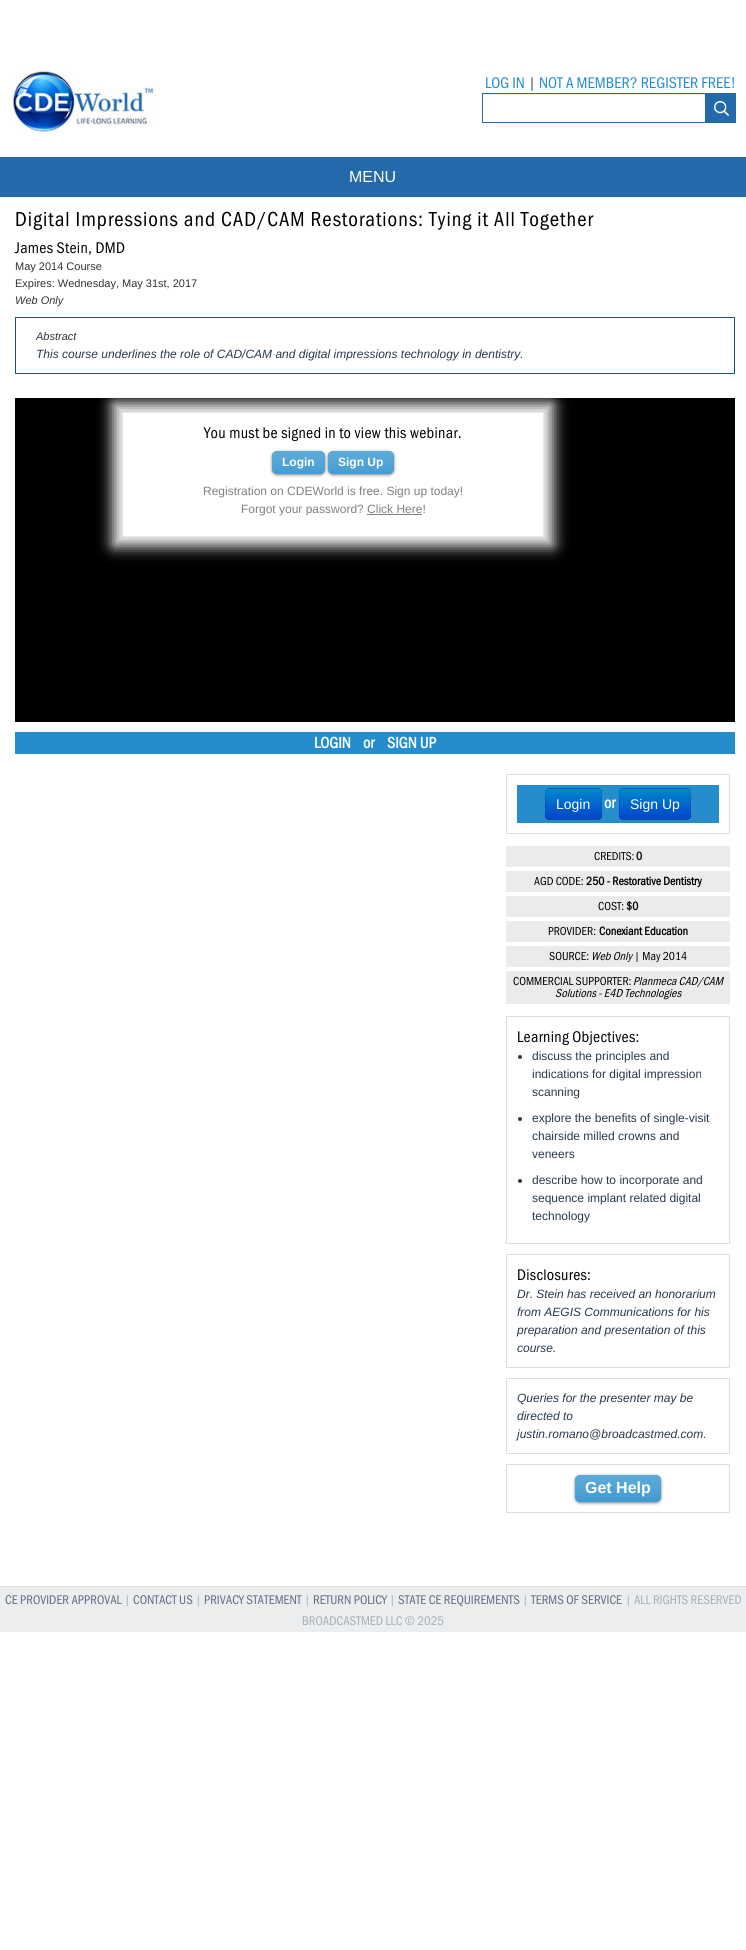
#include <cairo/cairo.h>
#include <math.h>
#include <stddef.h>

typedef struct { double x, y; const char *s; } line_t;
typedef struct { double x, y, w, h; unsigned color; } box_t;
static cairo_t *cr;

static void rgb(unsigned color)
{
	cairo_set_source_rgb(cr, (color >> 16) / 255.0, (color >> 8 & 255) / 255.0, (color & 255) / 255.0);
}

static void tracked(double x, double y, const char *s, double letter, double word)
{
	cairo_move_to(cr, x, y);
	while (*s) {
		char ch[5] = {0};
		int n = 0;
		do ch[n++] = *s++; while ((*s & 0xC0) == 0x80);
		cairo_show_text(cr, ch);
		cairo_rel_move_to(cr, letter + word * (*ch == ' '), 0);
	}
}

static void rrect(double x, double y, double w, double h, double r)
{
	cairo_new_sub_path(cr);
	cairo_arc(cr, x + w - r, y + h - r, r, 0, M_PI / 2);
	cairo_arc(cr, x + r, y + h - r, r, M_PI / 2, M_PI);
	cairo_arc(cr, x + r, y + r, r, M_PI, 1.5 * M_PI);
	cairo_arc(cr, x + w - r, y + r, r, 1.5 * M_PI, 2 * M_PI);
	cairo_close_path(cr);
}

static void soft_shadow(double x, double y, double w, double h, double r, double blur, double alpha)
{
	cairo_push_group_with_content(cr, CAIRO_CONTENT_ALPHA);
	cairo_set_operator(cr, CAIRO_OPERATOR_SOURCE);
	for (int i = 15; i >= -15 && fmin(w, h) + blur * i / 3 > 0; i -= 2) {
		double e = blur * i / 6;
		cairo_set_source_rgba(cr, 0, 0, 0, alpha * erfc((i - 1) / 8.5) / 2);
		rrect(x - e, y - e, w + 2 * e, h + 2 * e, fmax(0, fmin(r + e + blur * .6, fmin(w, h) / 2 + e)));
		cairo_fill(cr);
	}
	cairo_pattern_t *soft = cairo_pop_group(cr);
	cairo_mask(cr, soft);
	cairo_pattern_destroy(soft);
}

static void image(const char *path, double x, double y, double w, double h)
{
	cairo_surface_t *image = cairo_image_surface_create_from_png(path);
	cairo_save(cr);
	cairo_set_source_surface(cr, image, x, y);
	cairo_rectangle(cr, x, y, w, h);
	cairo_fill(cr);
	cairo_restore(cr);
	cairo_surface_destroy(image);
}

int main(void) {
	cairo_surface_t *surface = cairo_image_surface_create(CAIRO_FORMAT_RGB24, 746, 1950);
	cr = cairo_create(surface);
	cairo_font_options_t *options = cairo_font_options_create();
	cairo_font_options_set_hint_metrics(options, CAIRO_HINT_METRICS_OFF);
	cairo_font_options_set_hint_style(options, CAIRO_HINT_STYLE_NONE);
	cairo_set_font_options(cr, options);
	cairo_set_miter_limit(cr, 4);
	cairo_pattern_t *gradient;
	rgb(0xffffff);
	cairo_paint(cr);
	image("img/1.png", 12, 71, 146, 62);
	rgb(0xececec);
	cairo_rectangle(cr, 483, 94, 222, 1);
	cairo_fill(cr);
	cairo_rectangle(cr, 482.5, 93.5, 223, 29);
	rgb(0x2469aa);
	cairo_set_line_width(cr, 1);
	cairo_stroke(cr);
	cairo_rectangle(cr, 706, 93, 30, 30);
	cairo_fill(cr);
	image("img/2.png", 714, 101, 15, 15);
	cairo_rectangle(cr, 0, 157, 746, 40);
	cairo_fill(cr);
	cairo_rectangle(cr, 15.5, 317.5, 719, 56);
	rgb(0x125684);
	cairo_stroke(cr);
	rgb(0x000000);
	cairo_rectangle(cr, 15, 398, 720, 324);
	cairo_fill(cr);
	rgb(0xffffff);
	soft_shadow(113, 403, 440, 143, 0, 7.5, 1);
	rgb(0xffffff);
	cairo_rectangle(cr, 123, 413, 420, 123);
	cairo_fill(cr);
	rgb(0x000000);
	soft_shadow(272, 452, 53, 23, 5, 1.5, 0.5);
	rgb(0x258dcc);
	rrect(272, 451, 53, 23, 5);
	cairo_fill(cr);
	image("img/3.png", 272, 451, 53, 23);
	rgb(0x000000);
	soft_shadow(328, 452, 66, 23, 5, 1.5, 0.5);
	rgb(0x258dcc);
	rrect(328, 451, 66, 23, 5);
	cairo_fill(cr);
	image("img/4.png", 328, 451, 66, 23);
	rgb(0x808080);
	cairo_rectangle(cr, 367, 514, 55, 1);
	cairo_fill(cr);
	rgb(0x258dcc);
	cairo_rectangle(cr, 15, 732, 720, 22);
	cairo_fill(cr);
	cairo_rectangle(cr, 506.5, 774.5, 223, 59);
	rgb(0xdbdee5);
	cairo_stroke(cr);
	rgb(0x258dcc);
	cairo_rectangle(cr, 517, 785, 202, 38);
	cairo_fill(cr);
	rgb(0x006dcc);
	rrect(545, 788, 57, 32, 4);
	cairo_fill(cr);
	cairo_save(cr);
	rrect(545, 788, 57, 32, 4);
	cairo_clip(cr);
	gradient = cairo_pattern_create_linear(574, 789, 574, 819);
	cairo_pattern_add_color_stop_rgba(gradient, 0, 0, 0.533, 0.8, 1);
	cairo_pattern_add_color_stop_rgba(gradient, 1, 0, 0.267, 0.8, 1);
	cairo_set_source(cr, gradient);
	cairo_pattern_destroy(gradient);
	cairo_rectangle(cr, 545, 789, 57, 30);
	cairo_fill(cr);
	cairo_restore(cr);
	cairo_new_path(cr);
	cairo_move_to(cr, 600.5, 818.5);
	cairo_line_to(cr, 598.5, 819.5);
	cairo_line_to(cr, 548.5, 819.5);
	cairo_line_to(cr, 546.5, 818.5);
	cairo_set_source_rgba(cr, 0, 0, 0, 0.25);
	cairo_stroke(cr);
	cairo_new_path(cr);
	cairo_move_to(cr, 546.5, 818.5);
	cairo_curve_to(cr, 544.5, 816, 545.5, 807, 545.5, 804);
	cairo_curve_to(cr, 545.5, 788.5, 542.5, 788.5, 557, 788.5);
	cairo_line_to(cr, 590, 788.5);
	cairo_curve_to(cr, 604.5, 788.5, 601.5, 788.5, 601.5, 804);
	cairo_curve_to(cr, 601.5, 807, 602.5, 816, 600.5, 818.5);
	cairo_set_source_rgba(cr, 0, 0, 0, 0.1);
	cairo_stroke(cr);
	rgb(0x006dcc);
	rrect(619, 788, 72, 32, 4);
	cairo_fill(cr);
	cairo_save(cr);
	rrect(619, 788, 72, 32, 4);
	cairo_clip(cr);
	gradient = cairo_pattern_create_linear(655, 789, 655, 819);
	cairo_pattern_add_color_stop_rgba(gradient, 0, 0, 0.533, 0.8, 1);
	cairo_pattern_add_color_stop_rgba(gradient, 1, 0, 0.267, 0.8, 1);
	cairo_set_source(cr, gradient);
	cairo_pattern_destroy(gradient);
	cairo_rectangle(cr, 619, 789, 72, 30);
	cairo_fill(cr);
	cairo_restore(cr);
	cairo_new_path(cr);
	cairo_move_to(cr, 689.5, 818.5);
	cairo_line_to(cr, 687.5, 819.5);
	cairo_line_to(cr, 622.5, 819.5);
	cairo_line_to(cr, 620.5, 818.5);
	cairo_set_source_rgba(cr, 0, 0, 0, 0.25);
	cairo_stroke(cr);
	cairo_new_path(cr);
	cairo_move_to(cr, 620.5, 818.5);
	cairo_curve_to(cr, 618.5, 816, 619.5, 807, 619.5, 804);
	cairo_curve_to(cr, 619.5, 787, 616.5, 788.5, 633.5, 788.5);
	cairo_line_to(cr, 676.5, 788.5);
	cairo_curve_to(cr, 693.5, 788.5, 690.5, 787, 690.5, 804);
	cairo_curve_to(cr, 690.5, 807, 691.5, 816, 689.5, 818.5);
	cairo_set_source_rgba(cr, 0, 0, 0, 0.1);
	cairo_stroke(cr);
	{
		static const box_t items[] = {
			{506, 846, 224, 21, 0xebebeb},
			{506, 871, 224, 21, 0xebebeb},
			{506, 896, 224, 21, 0xebebeb},
			{506, 921, 224, 21, 0xebebeb},
			{506, 946, 224, 21, 0xebebeb},
			{506, 971, 224, 33, 0xebebeb},
		};
		for (size_t i = 0; i < sizeof items / sizeof *items; i++) {
			rgb(items[i].color);
			cairo_rectangle(cr, items[i].x, items[i].y, items[i].w, items[i].h);
			cairo_fill(cr);
		}
	}
	cairo_rectangle(cr, 506.5, 1016.5, 223, 227);
	rgb(0xdbdee5);
	cairo_stroke(cr);
	rgb(0x29394a);
	cairo_arc(cr, 520, 1057, 2, 0, 2 * M_PI);
	cairo_fill(cr);
	cairo_arc(cr, 520, 1119, 2, 0, 2 * M_PI);
	cairo_fill(cr);
	cairo_arc(cr, 520, 1181, 2, 0, 2 * M_PI);
	cairo_fill(cr);
	cairo_rectangle(cr, 506.5, 1254.5, 223, 113);
	rgb(0xdbdee5);
	cairo_stroke(cr);
	cairo_rectangle(cr, 506.5, 1378.5, 223, 75);
	cairo_stroke(cr);
	cairo_rectangle(cr, 506.5, 1464.5, 223, 48);
	cairo_stroke(cr);
	rgb(0x000000);
	soft_shadow(575, 1476, 86, 27, 5, 1.5, 0.5);
	rgb(0x258dcc);
	rrect(575, 1475, 86, 27, 5);
	cairo_fill(cr);
	image("img/5.png", 575, 1475, 86, 27);
	rgb(0xecedef);
	cairo_rectangle(cr, 0, 1587, 746, 45);
	cairo_fill(cr);
	rgb(0xe0e1e3);
	cairo_rectangle(cr, 0, 1586, 746, 1);
	cairo_fill(cr);
	cairo_select_font_face(cr, "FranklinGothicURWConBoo", CAIRO_FONT_SLANT_NORMAL, CAIRO_FONT_WEIGHT_NORMAL);
	cairo_set_font_size(cr, 16);
	rgb(0x258dcc);
	cairo_move_to(cr, 485, 88);
	cairo_show_text(cr, "LOG IN");
	rgb(0x474747);
	cairo_move_to(cr, 528, 88);
	cairo_show_text(cr, "|");
	rgb(0x258dcc);
	cairo_move_to(cr, 539, 88);
	cairo_show_text(cr, "NOT A MEMBER? REGISTER FREE!");
	cairo_select_font_face(cr, "Liberation Sans", CAIRO_FONT_SLANT_NORMAL, CAIRO_FONT_WEIGHT_NORMAL);
	rgb(0xffffff);
	cairo_move_to(cr, 349, 182);
	cairo_show_text(cr, "MENU");
	cairo_select_font_face(cr, "FranklinGothicURWConBoo", CAIRO_FONT_SLANT_NORMAL, CAIRO_FONT_WEIGHT_NORMAL);
	cairo_set_font_size(cr, 21);
	rgb(0x000000);
	tracked(15, 226, "Digital Impressions and CAD/CAM Restorations: Tying it All Together", 1, 0);
	cairo_set_font_size(cr, 16);
	tracked(15, 253, "James Stein, DMD", 0.3, 0);
	cairo_select_font_face(cr, "Liberation Sans", CAIRO_FONT_SLANT_NORMAL, CAIRO_FONT_WEIGHT_NORMAL);
	cairo_set_font_size(cr, 11);
	rgb(0x333333);
	cairo_move_to(cr, 15, 270);
	cairo_show_text(cr, "May 2014 Course");
	cairo_move_to(cr, 15, 287);
	cairo_show_text(cr, "Expires: Wednesday, May 31st, 2017");
	cairo_select_font_face(cr, "Liberation Sans", CAIRO_FONT_SLANT_ITALIC, CAIRO_FONT_WEIGHT_NORMAL);
	cairo_move_to(cr, 15, 304);
	cairo_show_text(cr, "Web Only");
	cairo_move_to(cr, 36, 340);
	cairo_show_text(cr, "Abstract");
	cairo_set_font_size(cr, 12);
	rgb(0x29394a);
	cairo_move_to(cr, 36, 358);
	cairo_show_text(cr, "This course underlines the role of CAD/CAM and digital impressions technology in dentistry.");
	cairo_select_font_face(cr, "FranklinGothicURWConBoo", CAIRO_FONT_SLANT_NORMAL, CAIRO_FONT_WEIGHT_NORMAL);
	cairo_set_font_size(cr, 16);
	rgb(0x000000);
	tracked(204, 438, "You must be signed in to view this webinar.", 0.3, 0);
	cairo_select_font_face(cr, "Liberation Sans", CAIRO_FONT_SLANT_NORMAL, CAIRO_FONT_WEIGHT_BOLD);
	cairo_set_font_size(cr, 12);
	rgb(0xffffff);
	cairo_move_to(cr, 282, 466);
	cairo_show_text(cr, "Login");
	cairo_move_to(cr, 338, 466);
	cairo_show_text(cr, "Sign Up");
	cairo_select_font_face(cr, "Liberation Sans", CAIRO_FONT_SLANT_NORMAL, CAIRO_FONT_WEIGHT_NORMAL);
	rgb(0x808080);
	cairo_move_to(cr, 203, 495);
	cairo_show_text(cr, "Registration on CDEWorld is free. Sign up today!");
	cairo_move_to(cr, 241, 513);
	cairo_show_text(cr, "Forgot your password? Click Here!");
	cairo_select_font_face(cr, "FranklinGothicURWConBoo", CAIRO_FONT_SLANT_NORMAL, CAIRO_FONT_WEIGHT_BOLD);
	cairo_set_font_size(cr, 16);
	rgb(0xffffff);
	{
		static const line_t items[] = {
			{314, 748, "LOGIN"},
			{363, 748, "or"},
			{387, 748, "SIGN UP"},
		};
		for (size_t i = 0; i < sizeof items / sizeof *items; i++) {
			cairo_move_to(cr, items[i].x, items[i].y);
			cairo_show_text(cr, items[i].s);
		}
	}
	cairo_select_font_face(cr, "Liberation Sans", CAIRO_FONT_SLANT_NORMAL, CAIRO_FONT_WEIGHT_NORMAL);
	cairo_set_font_size(cr, 14);
	cairo_move_to(cr, 556, 809);
	cairo_show_text(cr, "Login");
	cairo_select_font_face(cr, "FranklinGothicURWConBoo", CAIRO_FONT_SLANT_NORMAL, CAIRO_FONT_WEIGHT_BOLD);
	cairo_set_font_size(cr, 16);
	cairo_move_to(cr, 604, 808);
	cairo_show_text(cr, "or");
	cairo_select_font_face(cr, "Liberation Sans", CAIRO_FONT_SLANT_NORMAL, CAIRO_FONT_WEIGHT_NORMAL);
	cairo_set_font_size(cr, 14);
	cairo_move_to(cr, 630, 809);
	cairo_show_text(cr, "Sign Up");
	cairo_select_font_face(cr, "FranklinGothicURWConBoo", CAIRO_FONT_SLANT_NORMAL, CAIRO_FONT_WEIGHT_NORMAL);
	cairo_set_font_size(cr, 12);
	rgb(0x000000);
	cairo_move_to(cr, 594, 860);
	cairo_show_text(cr, "CREDITS:");
	cairo_select_font_face(cr, "FranklinGothicURWConBoo", CAIRO_FONT_SLANT_NORMAL, CAIRO_FONT_WEIGHT_BOLD);
	cairo_move_to(cr, 636, 860);
	cairo_show_text(cr, "0");
	cairo_select_font_face(cr, "FranklinGothicURWConBoo", CAIRO_FONT_SLANT_NORMAL, CAIRO_FONT_WEIGHT_NORMAL);
	cairo_move_to(cr, 534, 885);
	cairo_show_text(cr, "AGD CODE:");
	cairo_select_font_face(cr, "FranklinGothicURWConBoo", CAIRO_FONT_SLANT_NORMAL, CAIRO_FONT_WEIGHT_BOLD);
	cairo_move_to(cr, 586, 885);
	cairo_show_text(cr, "250 - Restorative Dentistry");
	cairo_select_font_face(cr, "FranklinGothicURWConBoo", CAIRO_FONT_SLANT_NORMAL, CAIRO_FONT_WEIGHT_NORMAL);
	cairo_move_to(cr, 598, 910);
	cairo_show_text(cr, "COST:");
	cairo_select_font_face(cr, "FranklinGothicURWConBoo", CAIRO_FONT_SLANT_NORMAL, CAIRO_FONT_WEIGHT_BOLD);
	cairo_move_to(cr, 626, 910);
	cairo_show_text(cr, "$0");
	cairo_select_font_face(cr, "FranklinGothicURWConBoo", CAIRO_FONT_SLANT_NORMAL, CAIRO_FONT_WEIGHT_NORMAL);
	cairo_move_to(cr, 548, 935);
	cairo_show_text(cr, "PROVIDER:");
	cairo_select_font_face(cr, "FranklinGothicURWConBoo", CAIRO_FONT_SLANT_NORMAL, CAIRO_FONT_WEIGHT_BOLD);
	cairo_move_to(cr, 599, 935);
	cairo_show_text(cr, "Conexiant Education");
	cairo_select_font_face(cr, "FranklinGothicURWConBoo", CAIRO_FONT_SLANT_NORMAL, CAIRO_FONT_WEIGHT_NORMAL);
	cairo_move_to(cr, 549, 960);
	cairo_show_text(cr, "SOURCE:");
	cairo_select_font_face(cr, "FranklinGothicURWConBoo", CAIRO_FONT_SLANT_ITALIC, CAIRO_FONT_WEIGHT_NORMAL);
	cairo_move_to(cr, 591, 960);
	cairo_show_text(cr, "Web Only");
	cairo_select_font_face(cr, "FranklinGothicURWConBoo", CAIRO_FONT_SLANT_NORMAL, CAIRO_FONT_WEIGHT_NORMAL);
	cairo_move_to(cr, 634, 960);
	cairo_show_text(cr, "| May 2014");
	cairo_move_to(cr, 513, 985);
	cairo_show_text(cr, "COMMERCIAL SUPPORTER:");
	cairo_select_font_face(cr, "FranklinGothicURWConBoo", CAIRO_FONT_SLANT_ITALIC, CAIRO_FONT_WEIGHT_NORMAL);
	cairo_move_to(cr, 633, 985);
	cairo_show_text(cr, "Planmeca CAD/CAM");
	cairo_move_to(cr, 555, 997);
	cairo_show_text(cr, "Solutions - E4D Technologies");
	cairo_select_font_face(cr, "FranklinGothicURWConBoo", CAIRO_FONT_SLANT_NORMAL, CAIRO_FONT_WEIGHT_NORMAL);
	cairo_set_font_size(cr, 16);
	tracked(517, 1042, "Learning Objectives:", 0.3, 0);
	cairo_select_font_face(cr, "Liberation Sans", CAIRO_FONT_SLANT_NORMAL, CAIRO_FONT_WEIGHT_NORMAL);
	cairo_set_font_size(cr, 12);
	rgb(0x29394a);
	{
		static const line_t items[] = {
			{532, 1060, "discuss the principles and"},
			{532, 1078, "indications for digital impression"},
			{532, 1096, "scanning"},
			{532, 1122, "explore the benefits of single-visit"},
			{532, 1140, "chairside milled crowns and"},
			{532, 1158, "veneers"},
			{532, 1184, "describe how to incorporate and"},
			{532, 1202, "sequence implant related digital"},
			{532, 1220, "technology"},
		};
		for (size_t i = 0; i < sizeof items / sizeof *items; i++) {
			cairo_move_to(cr, items[i].x, items[i].y);
			cairo_show_text(cr, items[i].s);
		}
	}
	cairo_select_font_face(cr, "FranklinGothicURWConBoo", CAIRO_FONT_SLANT_NORMAL, CAIRO_FONT_WEIGHT_NORMAL);
	cairo_set_font_size(cr, 16);
	rgb(0x000000);
	tracked(517, 1280, "Disclosures:", 0.3, 0);
	cairo_select_font_face(cr, "Liberation Sans", CAIRO_FONT_SLANT_ITALIC, CAIRO_FONT_WEIGHT_NORMAL);
	cairo_set_font_size(cr, 12);
	rgb(0x29394a);
	{
		static const line_t items[] = {
			{517, 1298, "Dr. Stein has received an honorarium"},
			{517, 1316, "from AEGIS Communications for his"},
			{517, 1334, "preparation and presentation of this"},
			{517, 1352, "course."},
			{517, 1402, "Queries for the presenter may be"},
			{517, 1420, "directed to"},
			{517, 1438, "justin.romano@broadcastmed.com."},
		};
		for (size_t i = 0; i < sizeof items / sizeof *items; i++) {
			cairo_move_to(cr, items[i].x, items[i].y);
			cairo_show_text(cr, items[i].s);
		}
	}
	cairo_select_font_face(cr, "Liberation Sans", CAIRO_FONT_SLANT_NORMAL, CAIRO_FONT_WEIGHT_BOLD);
	cairo_set_font_size(cr, 16);
	rgb(0xffffff);
	cairo_move_to(cr, 585, 1493);
	cairo_show_text(cr, "Get Help");
	cairo_select_font_face(cr, "FranklinGothicURWConBoo", CAIRO_FONT_SLANT_NORMAL, CAIRO_FONT_WEIGHT_NORMAL);
	cairo_set_font_size(cr, 13);
	rgb(0x636c80);
	cairo_move_to(cr, 5, 1604);
	cairo_show_text(cr, "CE PROVIDER APPROVAL");
	rgb(0xa7aeb6);
	cairo_move_to(cr, 124, 1604);
	cairo_show_text(cr, "|");
	rgb(0x636c80);
	cairo_move_to(cr, 133, 1604);
	cairo_show_text(cr, "CONTACT US");
	rgb(0xa7aeb6);
	cairo_move_to(cr, 195, 1604);
	cairo_show_text(cr, "|");
	rgb(0x636c80);
	cairo_move_to(cr, 204, 1604);
	cairo_show_text(cr, "PRIVACY STATEMENT");
	rgb(0xa7aeb6);
	cairo_move_to(cr, 304, 1604);
	cairo_show_text(cr, "|");
	rgb(0x636c80);
	cairo_move_to(cr, 313, 1604);
	cairo_show_text(cr, "RETURN POLICY");
	rgb(0xa7aeb6);
	cairo_move_to(cr, 389, 1604);
	cairo_show_text(cr, "|");
	rgb(0x636c80);
	cairo_move_to(cr, 398, 1604);
	cairo_show_text(cr, "STATE CE REQUIREMENTS");
	rgb(0xa7aeb6);
	cairo_move_to(cr, 522, 1604);
	cairo_show_text(cr, "|");
	rgb(0x636c80);
	cairo_move_to(cr, 531, 1604);
	cairo_show_text(cr, "TERMS OF SERVICE");
	rgb(0xa7aeb6);
	cairo_move_to(cr, 625, 1604);
	cairo_show_text(cr, "| ALL RIGHTS RESERVED");
	cairo_move_to(cr, 302, 1625);
	cairo_show_text(cr, "BROADCASTMED LLC © 2025");
	cairo_surface_write_to_png(surface, "page.png");
	cairo_font_options_destroy(options);
	cairo_destroy(cr);
	cairo_surface_destroy(surface);
	return 0;
}
